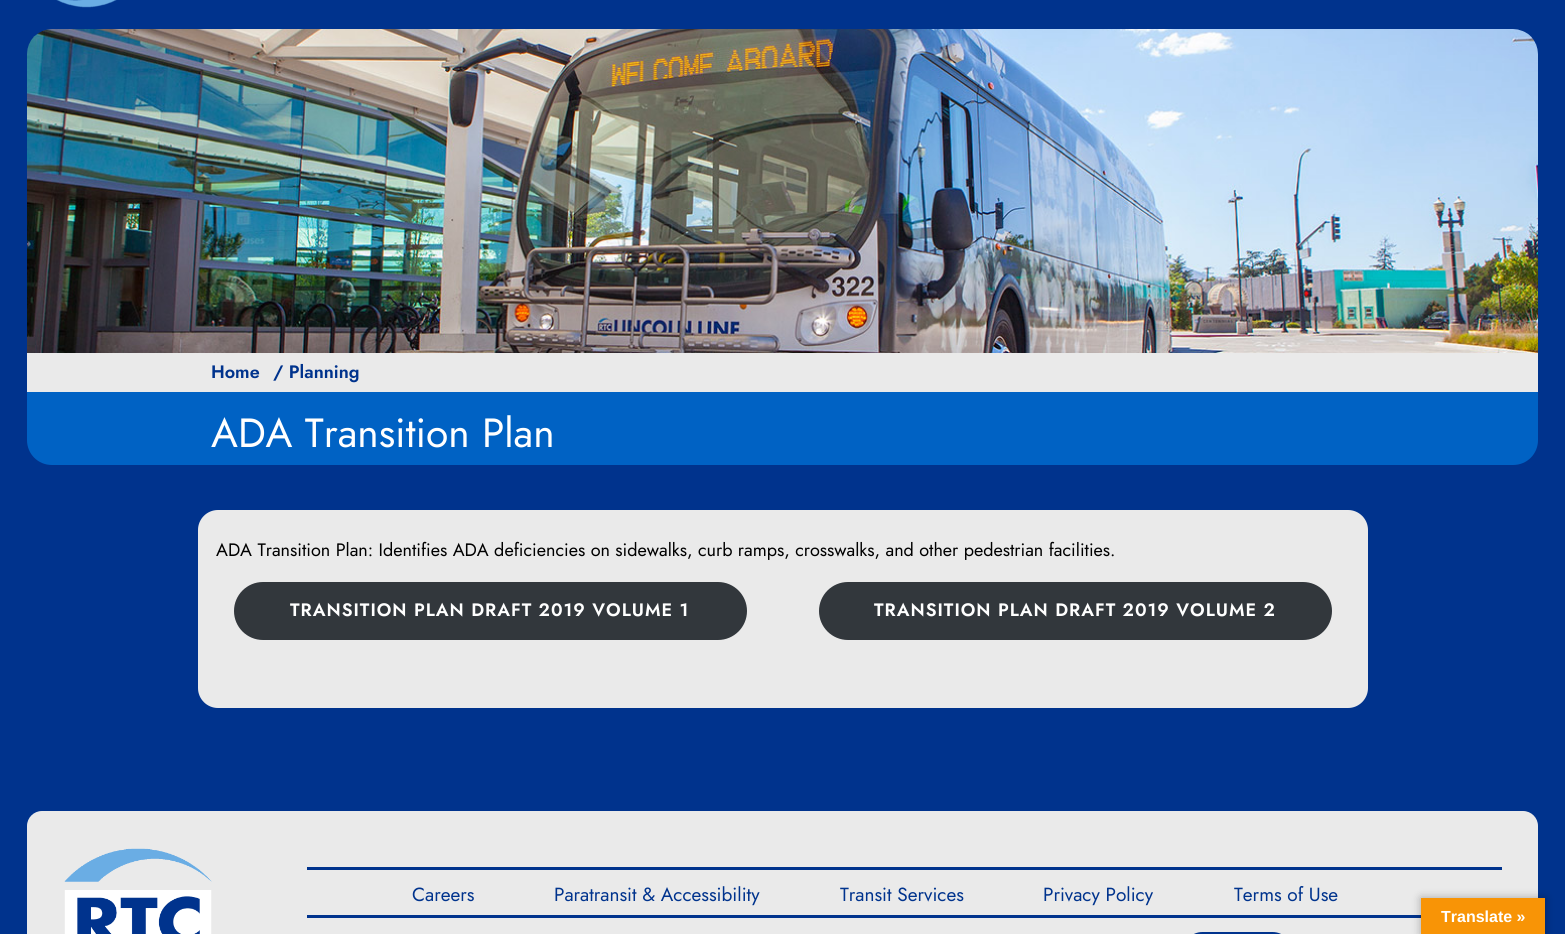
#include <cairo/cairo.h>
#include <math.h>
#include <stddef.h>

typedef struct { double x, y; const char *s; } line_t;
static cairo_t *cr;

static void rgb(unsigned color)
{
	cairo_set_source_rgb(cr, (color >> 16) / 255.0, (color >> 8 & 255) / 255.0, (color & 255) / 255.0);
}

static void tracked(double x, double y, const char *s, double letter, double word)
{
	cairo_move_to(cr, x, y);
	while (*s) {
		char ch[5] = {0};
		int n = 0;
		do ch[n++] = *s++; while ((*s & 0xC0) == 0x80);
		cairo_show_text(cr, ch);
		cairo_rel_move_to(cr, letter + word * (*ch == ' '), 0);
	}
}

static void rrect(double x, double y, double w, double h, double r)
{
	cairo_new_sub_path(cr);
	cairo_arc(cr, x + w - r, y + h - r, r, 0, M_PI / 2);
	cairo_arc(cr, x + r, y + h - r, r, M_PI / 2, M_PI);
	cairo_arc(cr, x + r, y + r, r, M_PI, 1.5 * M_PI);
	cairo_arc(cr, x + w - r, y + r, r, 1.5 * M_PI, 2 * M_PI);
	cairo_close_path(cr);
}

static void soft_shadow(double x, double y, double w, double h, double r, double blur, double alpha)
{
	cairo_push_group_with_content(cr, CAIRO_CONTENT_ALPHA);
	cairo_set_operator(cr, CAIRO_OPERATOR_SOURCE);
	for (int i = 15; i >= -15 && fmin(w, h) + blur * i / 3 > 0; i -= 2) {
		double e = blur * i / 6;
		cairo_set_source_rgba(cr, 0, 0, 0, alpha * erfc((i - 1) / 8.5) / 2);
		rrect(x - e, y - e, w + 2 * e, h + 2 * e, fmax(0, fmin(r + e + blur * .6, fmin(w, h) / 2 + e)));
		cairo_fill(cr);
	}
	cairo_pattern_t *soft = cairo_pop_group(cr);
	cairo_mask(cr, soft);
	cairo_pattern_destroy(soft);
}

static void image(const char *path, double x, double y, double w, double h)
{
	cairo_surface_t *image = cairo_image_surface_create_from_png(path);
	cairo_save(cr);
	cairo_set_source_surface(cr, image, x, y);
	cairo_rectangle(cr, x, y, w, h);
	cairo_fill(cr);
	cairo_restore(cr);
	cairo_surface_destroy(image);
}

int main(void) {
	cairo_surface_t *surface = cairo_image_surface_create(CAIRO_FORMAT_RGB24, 1565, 934);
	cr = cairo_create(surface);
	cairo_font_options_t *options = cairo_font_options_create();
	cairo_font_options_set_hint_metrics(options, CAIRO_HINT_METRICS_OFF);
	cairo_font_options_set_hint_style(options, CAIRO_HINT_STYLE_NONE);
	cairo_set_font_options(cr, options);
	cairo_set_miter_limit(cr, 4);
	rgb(0x00338d);
	cairo_paint(cr);
	image("img/1.png", 56, 0, 61, 8);
	image("img/2.png", 27, 29, 1511, 324);
	rgb(0xeaeaea);
	cairo_rectangle(cr, 27, 353, 1511, 39);
	cairo_fill(cr);
	rgb(0x0062c4);
	cairo_new_path(cr);
	cairo_move_to(cr, 27, 392);
	cairo_line_to(cr, 1538, 392);
	cairo_line_to(cr, 1538, 440);
	cairo_curve_to(cr, 1538, 454, 1527, 465, 1513, 465);
	cairo_line_to(cr, 52, 465);
	cairo_curve_to(cr, 38, 465, 27, 454, 27, 440);
	cairo_close_path(cr);
	cairo_fill(cr);
	rgb(0xeaeaea);
	rrect(198, 510, 1170, 198, 20);
	cairo_fill(cr);
	rgb(0x32373c);
	rrect(234, 582, 513, 58, 29);
	cairo_fill(cr);
	rrect(819, 582, 513, 58, 29);
	cairo_fill(cr);
	rgb(0xeaeaea);
	rrect(27, 811, 1511, 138, 15);
	cairo_fill(cr);
	image("img/3.png", 64, 848, 148, 86);
	rgb(0x00338d);
	cairo_rectangle(cr, 307, 867, 1195, 3);
	cairo_fill(cr);
	cairo_rectangle(cr, 307, 915, 1114, 3);
	cairo_fill(cr);
	rrect(1183, 932, 109, 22, 19.5);
	cairo_fill(cr);
	rgb(0x000000);
	soft_shadow(1421, 898, 124, 36, 0, 4.5, 0.3);
	rgb(0xf89406);
	cairo_rectangle(cr, 1421, 898, 124, 36);
	cairo_fill(cr);
	cairo_select_font_face(cr, "Jost SemiBold", CAIRO_FONT_SLANT_NORMAL, CAIRO_FONT_WEIGHT_NORMAL);
	cairo_set_font_size(cr, 18);
	rgb(0x00338d);
	cairo_move_to(cr, 211, 378);
	cairo_show_text(cr, "Home");
	cairo_move_to(cr, 273, 378);
	cairo_show_text(cr, "/ Planning");
	cairo_select_font_face(cr, "Jost", CAIRO_FONT_SLANT_NORMAL, CAIRO_FONT_WEIGHT_NORMAL);
	cairo_set_font_size(cr, 40.75);
	rgb(0xffffff);
	cairo_move_to(cr, 211, 447);
	cairo_show_text(cr, "ADA Transition Plan");
	cairo_set_font_size(cr, 18);
	rgb(0x000000);
	cairo_move_to(cr, 216, 556);
	cairo_show_text(cr, "ADA Transition Plan: Identifies ADA deficiencies on sidewalks, curb ramps, crosswalks, and other pedestrian facilities.");
	cairo_select_font_face(cr, "Jost SemiBold", CAIRO_FONT_SLANT_NORMAL, CAIRO_FONT_WEIGHT_NORMAL);
	rgb(0xffffff);
	tracked(290, 616, "TRANSITION PLAN DRAFT 2019 VOLUME 1", 1, 0);
	tracked(874, 616, "TRANSITION PLAN DRAFT 2019 VOLUME 2", 1, 0);
	cairo_select_font_face(cr, "Jost", CAIRO_FONT_SLANT_NORMAL, CAIRO_FONT_WEIGHT_NORMAL);
	cairo_set_font_size(cr, 19);
	rgb(0x00338d);
	{
		static const line_t items[] = {
			{412, 901, "Careers"},
			{554, 901, "Paratransit & Accessibility"},
			{840, 901, "Transit Services"},
			{1043, 901, "Privacy Policy"},
			{1234, 901, "Terms of Use"},
		};
		for (size_t i = 0; i < sizeof items / sizeof *items; i++) {
			cairo_move_to(cr, items[i].x, items[i].y);
			cairo_show_text(cr, items[i].s);
		}
	}
	cairo_select_font_face(cr, "Liberation Sans", CAIRO_FONT_SLANT_NORMAL, CAIRO_FONT_WEIGHT_BOLD);
	cairo_set_font_size(cr, 16);
	rgb(0xffffff);
	cairo_move_to(cr, 1441, 922);
	cairo_show_text(cr, "Translate »");
	cairo_surface_write_to_png(surface, "page.png");
	cairo_font_options_destroy(options);
	cairo_destroy(cr);
	cairo_surface_destroy(surface);
	return 0;
}
